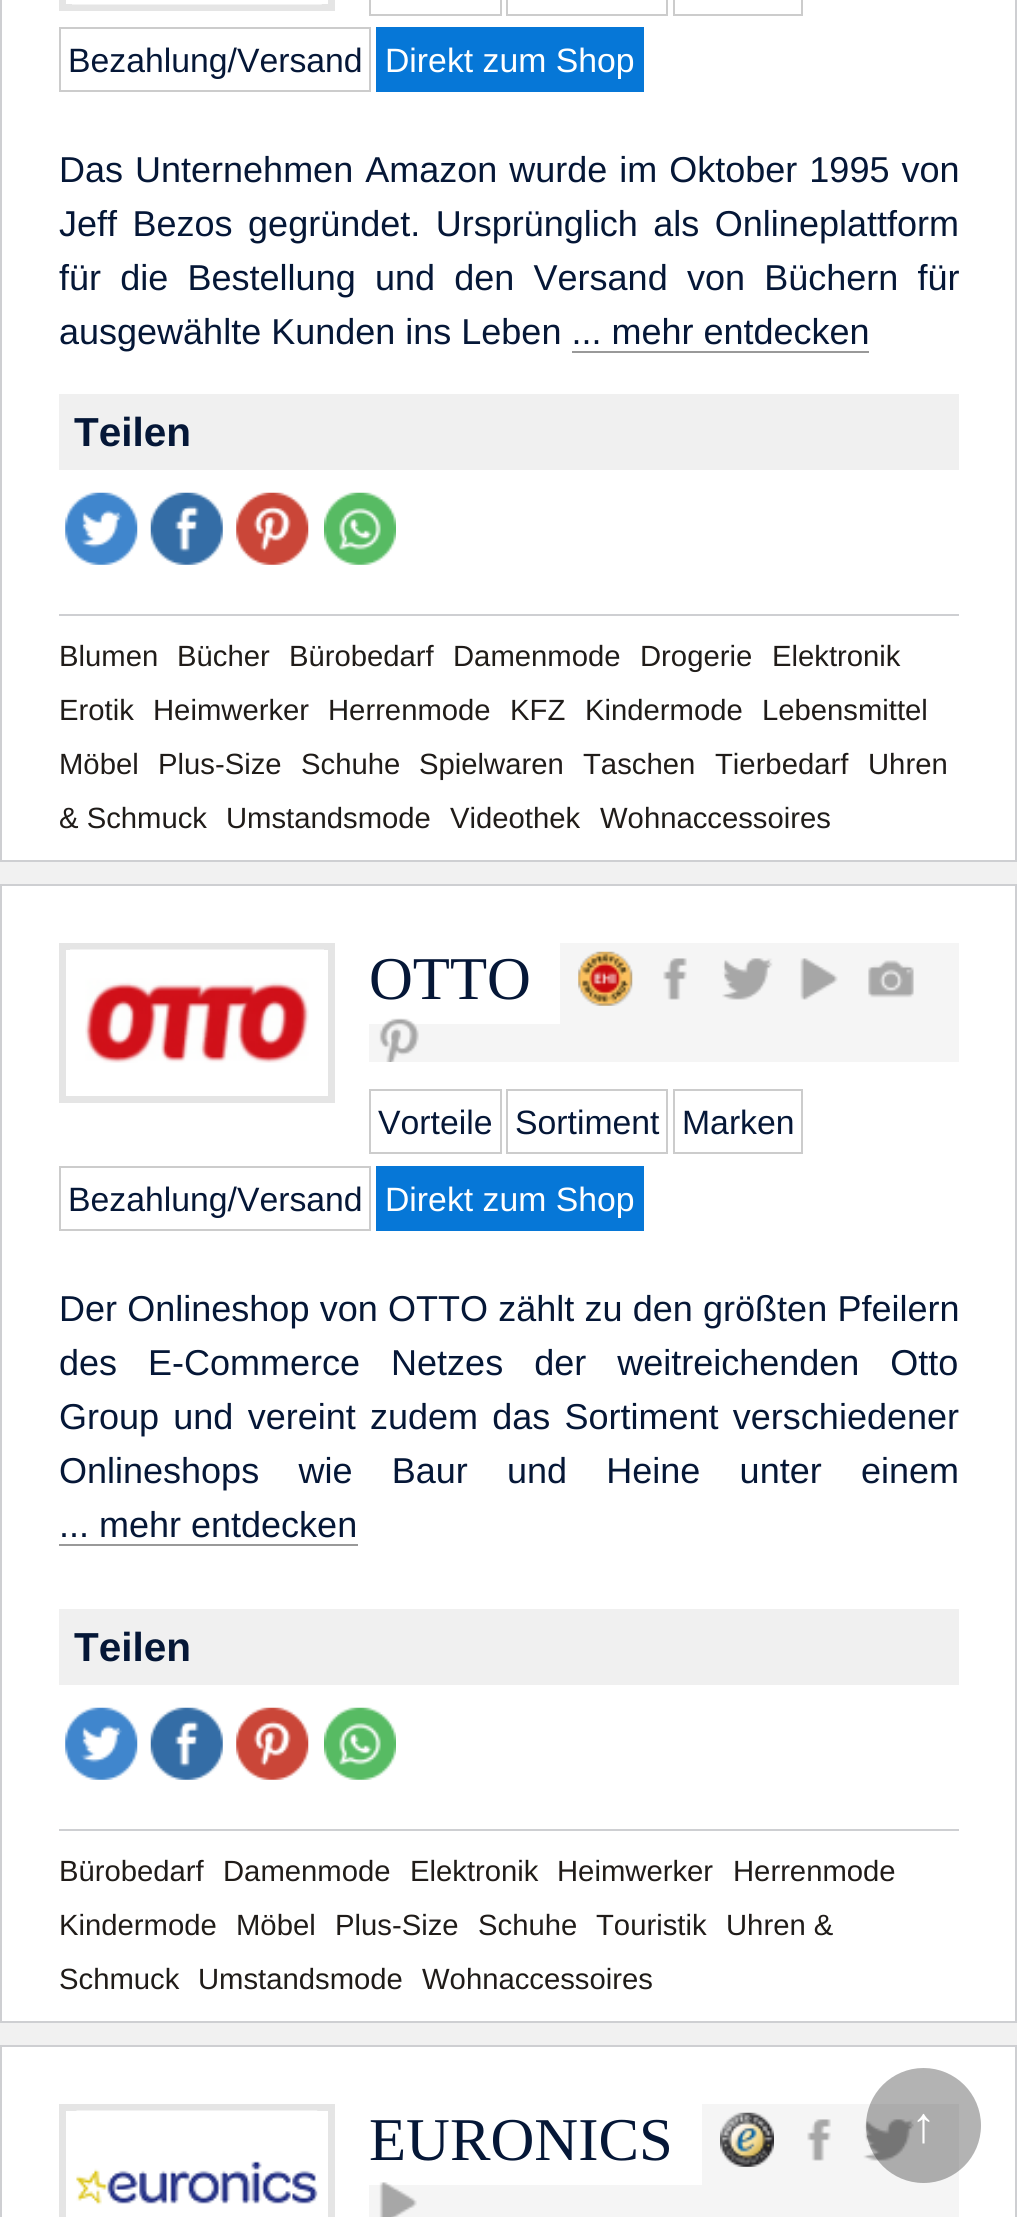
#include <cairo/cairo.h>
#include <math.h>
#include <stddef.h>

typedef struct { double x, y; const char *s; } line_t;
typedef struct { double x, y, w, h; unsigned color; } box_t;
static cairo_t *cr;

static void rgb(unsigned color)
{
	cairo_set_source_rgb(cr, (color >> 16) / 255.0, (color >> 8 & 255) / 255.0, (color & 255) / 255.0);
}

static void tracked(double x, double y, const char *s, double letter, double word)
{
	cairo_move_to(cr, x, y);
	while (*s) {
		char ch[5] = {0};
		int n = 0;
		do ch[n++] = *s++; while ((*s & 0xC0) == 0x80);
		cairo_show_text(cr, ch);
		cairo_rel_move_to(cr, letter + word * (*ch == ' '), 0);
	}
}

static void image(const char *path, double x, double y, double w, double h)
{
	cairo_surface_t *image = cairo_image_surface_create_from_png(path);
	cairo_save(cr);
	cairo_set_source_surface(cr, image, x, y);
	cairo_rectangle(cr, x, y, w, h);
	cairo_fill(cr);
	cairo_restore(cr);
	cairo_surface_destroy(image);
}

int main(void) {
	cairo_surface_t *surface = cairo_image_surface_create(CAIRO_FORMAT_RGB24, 1017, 2217);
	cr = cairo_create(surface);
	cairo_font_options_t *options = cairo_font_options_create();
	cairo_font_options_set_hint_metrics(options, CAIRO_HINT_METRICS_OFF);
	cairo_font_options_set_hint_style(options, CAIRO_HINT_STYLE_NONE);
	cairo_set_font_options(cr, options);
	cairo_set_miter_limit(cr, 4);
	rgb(0xf1f1f1);
	cairo_paint(cr);
	rgb(0xffffff);
	cairo_rectangle(cr, 1, -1, 1015, 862);
	cairo_fill_preserve(cr);
	rgb(0xcecfd2);
	cairo_stroke(cr);
	cairo_rectangle(cr, 62.5, -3.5, 269, 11);
	rgb(0xe5e5e5);
	cairo_set_line_width(cr, 7);
	cairo_stroke(cr);
	image("img/1.png", 72, 4, 250, 1);
	cairo_rectangle(cr, 370, -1, 131, 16);
	rgb(0xcccccc);
	cairo_set_line_width(cr, 2);
	cairo_stroke(cr);
	cairo_rectangle(cr, 507, -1, 160, 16);
	cairo_stroke(cr);
	cairo_rectangle(cr, 674, -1, 128, 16);
	cairo_stroke(cr);
	cairo_rectangle(cr, 60, 28, 310, 63);
	cairo_stroke(cr);
	rgb(0x0677d7);
	cairo_rectangle(cr, 376, 27, 268, 65);
	cairo_fill(cr);
	rgb(0xf0f0f0);
	cairo_rectangle(cr, 59, 394, 900, 76);
	cairo_fill(cr);
	image("img/2.png", 65, 492, 73, 73);
	image("img/3.png", 150, 492, 73, 73);
	image("img/4.png", 236, 492, 73, 73);
	image("img/5.png", 324, 492, 72, 73);
	rgb(0xcecfd2);
	cairo_rectangle(cr, 59, 614, 900, 2);
	cairo_fill(cr);
	rgb(0xffffff);
	cairo_rectangle(cr, 1, 885, 1015, 1137);
	cairo_fill_preserve(cr);
	rgb(0xcecfd2);
	cairo_stroke(cr);
	cairo_rectangle(cr, 62.5, 946.5, 269, 153);
	rgb(0xe5e5e5);
	cairo_set_line_width(cr, 7);
	cairo_stroke(cr);
	image("img/6.png", 70, 949, 254, 114);
	rgb(0xf5f5f5);
	cairo_rectangle(cr, 369, 943, 590, 119);
	cairo_fill(cr);
	rgb(0xffffff);
	cairo_rectangle(cr, 369, 943, 191, 81);
	cairo_fill(cr);
	image("img/7.png", 578, 951, 55, 55);
	image("img/8.png", 663, 958, 24, 42);
	image("img/9.png", 722, 958, 51, 42);
	image("img/10.png", 800, 958, 38, 42);
	image("img/11.png", 868, 960, 46, 38);
	image("img/12.png", 379, 1018, 40, 44);
	cairo_rectangle(cr, 370, 1090, 131, 63);
	rgb(0xcccccc);
	cairo_set_line_width(cr, 2);
	cairo_stroke(cr);
	cairo_rectangle(cr, 507, 1090, 160, 63);
	cairo_stroke(cr);
	cairo_rectangle(cr, 674, 1090, 128, 63);
	cairo_stroke(cr);
	cairo_rectangle(cr, 60, 1167, 310, 63);
	cairo_stroke(cr);
	{
		static const box_t items[] = {
			{376, 1166, 268, 65, 0x0677d7},
			{59, 1544, 299, 2, 0x999999},
			{59, 1609, 900, 76, 0xf0f0f0},
		};
		for (size_t i = 0; i < sizeof items / sizeof *items; i++) {
			rgb(items[i].color);
			cairo_rectangle(cr, items[i].x, items[i].y, items[i].w, items[i].h);
			cairo_fill(cr);
		}
	}
	image("img/2.png", 65, 1707, 73, 73);
	image("img/3.png", 150, 1707, 73, 73);
	image("img/4.png", 236, 1707, 73, 73);
	image("img/5.png", 324, 1707, 72, 73);
	rgb(0xcecfd2);
	cairo_rectangle(cr, 59, 1829, 900, 2);
	cairo_fill(cr);
	rgb(0xffffff);
	cairo_rectangle(cr, 1, 2046, 1015, 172);
	cairo_fill_preserve(cr);
	rgb(0xcecfd2);
	cairo_stroke(cr);
	cairo_rectangle(cr, 62.5, 2107.5, 269, 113);
	rgb(0xe5e5e5);
	cairo_set_line_width(cr, 7);
	cairo_stroke(cr);
	image("img/13.png", 76, 2110, 242, 95);
	rgb(0xf5f5f5);
	cairo_rectangle(cr, 369, 2104, 590, 113);
	cairo_fill(cr);
	rgb(0xffffff);
	cairo_rectangle(cr, 369, 2104, 333, 81);
	cairo_fill(cr);
	image("img/14.png", 720, 2112, 54, 55);
	image("img/8.png", 807, 2119, 24, 42);
	image("img/15.png", 863, 2119, 51, 42);
	image("img/16.png", 379, 2182, 38, 35);
	cairo_set_source_rgba(cr, 0, 0, 0, 0.3);
	cairo_arc(cr, 923.5, 2125.5, 57.5, 0, 2 * M_PI);
	cairo_fill(cr);
	cairo_select_font_face(cr, "Liberation Sans", CAIRO_FONT_SLANT_NORMAL, CAIRO_FONT_WEIGHT_NORMAL);
	cairo_set_font_size(cr, 33.75);
	rgb(0x051737);
	cairo_move_to(cr, 68, 72);
	cairo_show_text(cr, "Bezahlung/Versand");
	rgb(0xffffff);
	cairo_move_to(cr, 385, 72);
	cairo_show_text(cr, "Direkt zum Shop");
	cairo_set_font_size(cr, 36);
	rgb(0x051737);
	tracked(59, 182, "Das Unternehmen Amazon wurde im Oktober 1995 von", 0, 2);
	tracked(59, 236, "Jeff Bezos gegründet. Ursprünglich als Onlineplattform", 0, 5.5);
	tracked(59, 290, "für die Bestellung und den Versand von Büchern für", 0, 9.25);
	cairo_move_to(cr, 59, 344);
	cairo_show_text(cr, "ausgewählte Kunden ins Leben ... mehr entdecken");
	rgb(0x999999);
	cairo_rectangle(cr, 572, 351, 297, 2);
	cairo_fill(cr);
	cairo_select_font_face(cr, "Liberation Sans", CAIRO_FONT_SLANT_NORMAL, CAIRO_FONT_WEIGHT_BOLD);
	cairo_set_font_size(cr, 40.5);
	rgb(0x051737);
	cairo_move_to(cr, 74, 446);
	cairo_show_text(cr, "Teilen");
	cairo_select_font_face(cr, "Liberation Sans", CAIRO_FONT_SLANT_NORMAL, CAIRO_FONT_WEIGHT_NORMAL);
	cairo_set_font_size(cr, 29.25);
	rgb(0x201c19);
	{
		static const line_t items[] = {
			{59, 666, "Blumen"},
			{177, 666, "Bücher"},
			{289, 666, "Bürobedarf"},
			{453, 666, "Damenmode"},
			{640, 666, "Drogerie"},
			{772, 666, "Elektronik"},
			{59, 720, "Erotik"},
			{153, 720, "Heimwerker"},
			{328, 720, "Herrenmode"},
			{510, 720, "KFZ"},
			{585, 720, "Kindermode"},
			{762, 720, "Lebensmittel"},
			{59, 774, "Möbel"},
			{158, 774, "Plus-Size"},
			{301, 774, "Schuhe"},
			{419, 774, "Spielwaren"},
			{583, 774, "Taschen"},
			{715, 774, "Tierbedarf"},
			{868, 774, "Uhren"},
			{59, 828, "& Schmuck"},
			{226, 828, "Umstandsmode"},
			{450, 828, "Videothek"},
			{600, 828, "Wohnaccessoires"},
		};
		for (size_t i = 0; i < sizeof items / sizeof *items; i++) {
			cairo_move_to(cr, items[i].x, items[i].y);
			cairo_show_text(cr, items[i].s);
		}
	}
	cairo_select_font_face(cr, "Liberation Serif", CAIRO_FONT_SLANT_NORMAL, CAIRO_FONT_WEIGHT_NORMAL);
	cairo_set_font_size(cr, 60.75);
	rgb(0x051737);
	cairo_move_to(cr, 369, 999);
	cairo_show_text(cr, "OTTO");
	cairo_select_font_face(cr, "Liberation Sans", CAIRO_FONT_SLANT_NORMAL, CAIRO_FONT_WEIGHT_NORMAL);
	cairo_set_font_size(cr, 33.75);
	{
		static const line_t items[] = {
			{378, 1134, "Vorteile"},
			{515, 1134, "Sortiment"},
			{682, 1134, "Marken"},
			{68, 1211, "Bezahlung/Versand"},
		};
		for (size_t i = 0; i < sizeof items / sizeof *items; i++) {
			cairo_move_to(cr, items[i].x, items[i].y);
			cairo_show_text(cr, items[i].s);
		}
	}
	rgb(0xffffff);
	cairo_move_to(cr, 385, 1211);
	cairo_show_text(cr, "Direkt zum Shop");
	cairo_set_font_size(cr, 36);
	rgb(0x051737);
	tracked(59, 1321, "Der Onlineshop von OTTO zählt zu den größten Pfeilern", 0, 0.25);
	tracked(59, 1375, "des E-Commerce Netzes der weitreichenden Otto", 0, 21);
	tracked(59, 1429, "Group und vereint zudem das Sortiment verschiedener", 0, 4.25);
	tracked(59, 1483, "Onlineshops wie Baur und Heine unter einem", 0, 29.25);
	cairo_move_to(cr, 59, 1537);
	cairo_show_text(cr, "... mehr entdecken");
	cairo_select_font_face(cr, "Liberation Sans", CAIRO_FONT_SLANT_NORMAL, CAIRO_FONT_WEIGHT_BOLD);
	cairo_set_font_size(cr, 40.5);
	cairo_move_to(cr, 74, 1661);
	cairo_show_text(cr, "Teilen");
	cairo_select_font_face(cr, "Liberation Sans", CAIRO_FONT_SLANT_NORMAL, CAIRO_FONT_WEIGHT_NORMAL);
	cairo_set_font_size(cr, 29.25);
	rgb(0x201c19);
	{
		static const line_t items[] = {
			{59, 1881, "Bürobedarf"},
			{223, 1881, "Damenmode"},
			{410, 1881, "Elektronik"},
			{557, 1881, "Heimwerker"},
			{733, 1881, "Herrenmode"},
			{59, 1935, "Kindermode"},
			{236, 1935, "Möbel"},
			{335, 1935, "Plus-Size"},
			{478, 1935, "Schuhe"},
			{596, 1935, "Touristik"},
			{726, 1935, "Uhren &"},
			{59, 1989, "Schmuck"},
			{198, 1989, "Umstandsmode"},
			{422, 1989, "Wohnaccessoires"},
		};
		for (size_t i = 0; i < sizeof items / sizeof *items; i++) {
			cairo_move_to(cr, items[i].x, items[i].y);
			cairo_show_text(cr, items[i].s);
		}
	}
	cairo_select_font_face(cr, "Liberation Serif", CAIRO_FONT_SLANT_NORMAL, CAIRO_FONT_WEIGHT_NORMAL);
	cairo_set_font_size(cr, 60.75);
	rgb(0x051737);
	cairo_move_to(cr, 369, 2160);
	cairo_show_text(cr, "EURONICS");
	cairo_select_font_face(cr, "Liberation Sans", CAIRO_FONT_SLANT_NORMAL, CAIRO_FONT_WEIGHT_NORMAL);
	cairo_set_font_size(cr, 50);
	rgb(0xffffff);
	cairo_move_to(cr, 911, 2142);
	cairo_show_text(cr, "↑");
	cairo_surface_write_to_png(surface, "page.png");
	cairo_font_options_destroy(options);
	cairo_destroy(cr);
	cairo_surface_destroy(surface);
	return 0;
}
